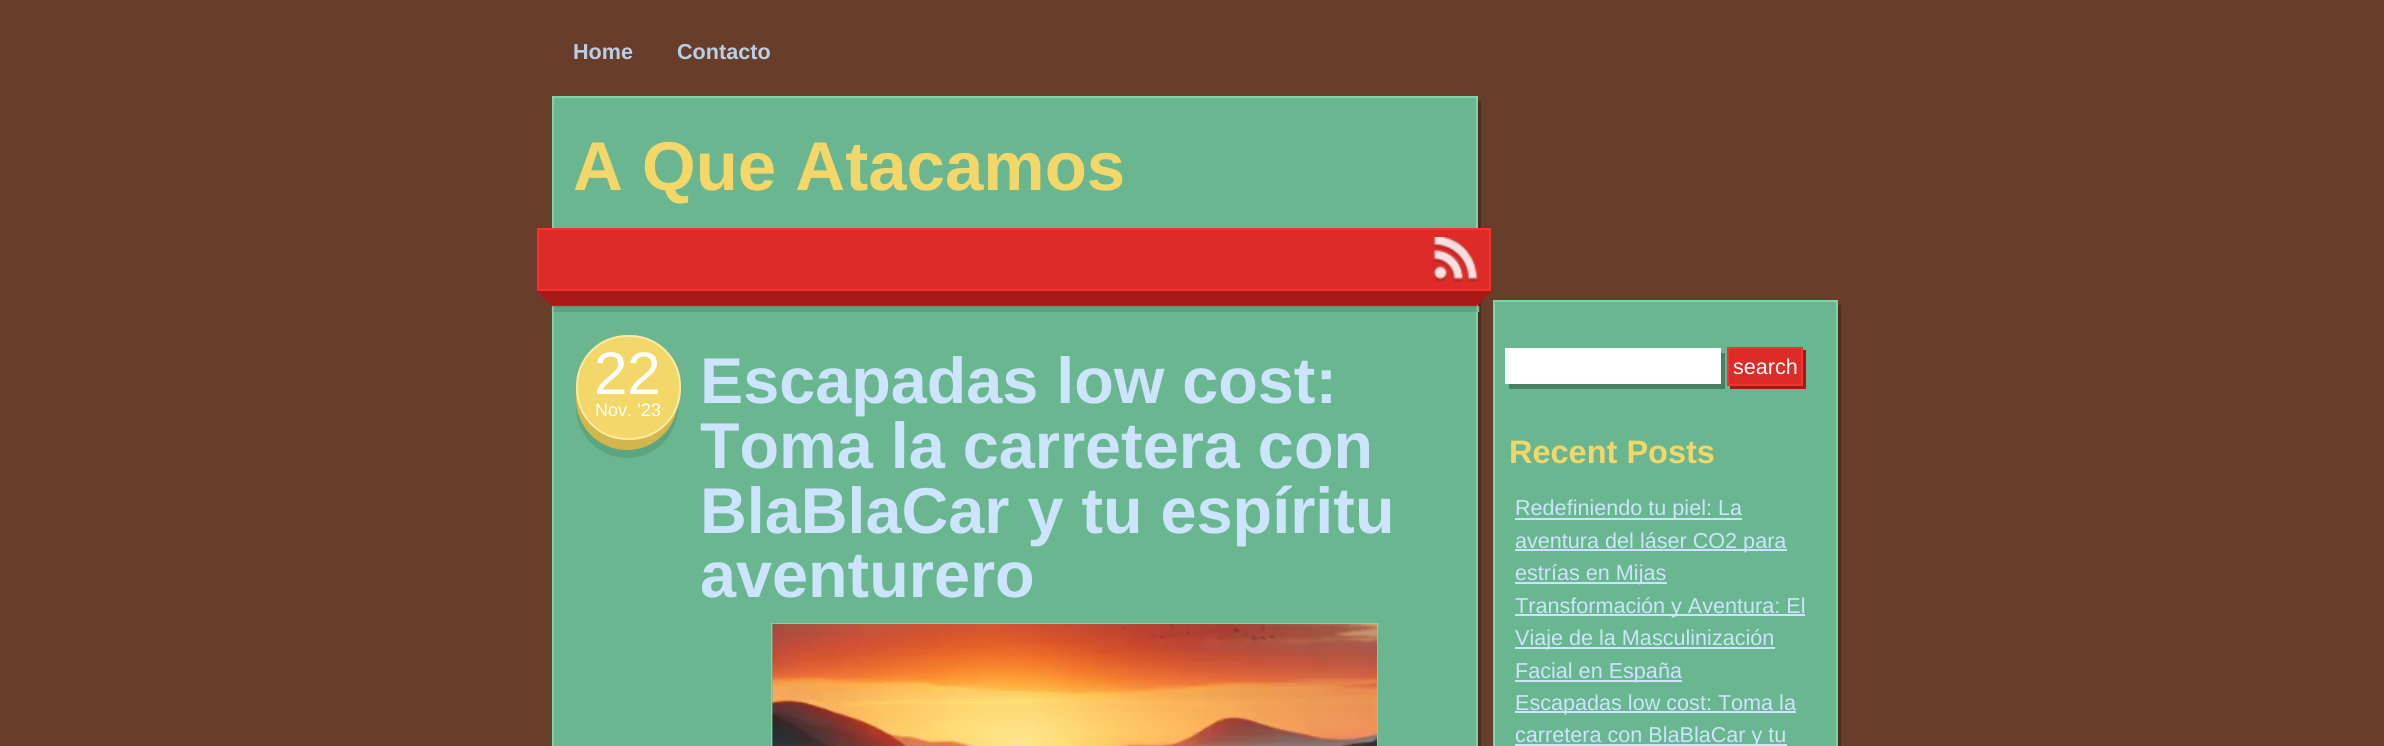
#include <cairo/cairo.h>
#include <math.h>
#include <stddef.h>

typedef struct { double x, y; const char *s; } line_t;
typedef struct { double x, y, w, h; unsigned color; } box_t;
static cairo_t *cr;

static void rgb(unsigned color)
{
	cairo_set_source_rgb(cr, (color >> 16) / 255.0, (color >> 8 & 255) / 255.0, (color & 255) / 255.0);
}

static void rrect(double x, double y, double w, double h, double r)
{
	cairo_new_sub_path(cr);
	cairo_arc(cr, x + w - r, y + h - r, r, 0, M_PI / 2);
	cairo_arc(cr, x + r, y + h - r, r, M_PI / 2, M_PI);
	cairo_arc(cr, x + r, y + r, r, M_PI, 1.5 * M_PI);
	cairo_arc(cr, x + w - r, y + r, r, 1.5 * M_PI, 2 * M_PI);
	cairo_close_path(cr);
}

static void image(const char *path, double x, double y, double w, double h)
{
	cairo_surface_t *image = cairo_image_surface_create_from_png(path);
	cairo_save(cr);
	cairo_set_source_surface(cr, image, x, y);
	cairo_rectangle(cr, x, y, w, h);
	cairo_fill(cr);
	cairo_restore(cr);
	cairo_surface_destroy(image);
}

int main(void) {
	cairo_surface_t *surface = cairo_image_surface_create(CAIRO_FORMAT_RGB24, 2384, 746);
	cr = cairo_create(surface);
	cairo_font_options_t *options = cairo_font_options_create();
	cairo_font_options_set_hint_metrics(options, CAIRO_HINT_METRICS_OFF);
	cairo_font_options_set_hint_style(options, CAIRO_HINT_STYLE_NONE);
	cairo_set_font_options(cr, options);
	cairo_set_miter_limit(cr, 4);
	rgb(0x683d29);
	cairo_paint(cr);
	rgb(0x4e2e1f);
	cairo_new_path(cr);
	cairo_move_to(cr, 555, 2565);
	cairo_line_to(cr, 555, 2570);
	cairo_line_to(cr, 1481, 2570);
	cairo_line_to(cr, 1481, 101);
	cairo_line_to(cr, 1478, 101);
	cairo_line_to(cr, 1478, 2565);
	cairo_close_path(cr);
	cairo_fill(cr);
	rgb(0x6ab690);
	cairo_rectangle(cr, 553, 97, 924, 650);
	cairo_fill_preserve(cr);
	rgb(0x7ed4a8);
	cairo_stroke(cr);
	rgb(0xdd2b27);
	cairo_rectangle(cr, 538, 229, 952, 61);
	cairo_fill_preserve(cr);
	rgb(0xf7322e);
	cairo_stroke(cr);
	image("img/1.png", 1433, 237, 45, 45);
	image("img/2.png", 537, 291, 954, 21);
	rgb(0x5da581);
	cairo_arc(cr, 627, 407, 51, 0, 2 * M_PI);
	cairo_fill(cr);
	rgb(0xd1b74c);
	cairo_arc(cr, 627, 399, 51, 0, 2 * M_PI);
	cairo_fill(cr);
	rgb(0xf3d769);
	rrect(577, 336, 103, 103, 50);
	cairo_fill_preserve(cr);
	rgb(0xfdeaa2);
	cairo_stroke(cr);
	rgb(0x7ed4a8);
	cairo_rectangle(cr, 771, 623, 608, 2);
	cairo_fill(cr);
	cairo_new_path(cr);
	cairo_move_to(cr, 771, 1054);
	cairo_line_to(cr, 771, 622);
	cairo_line_to(cr, 772, 624);
	cairo_line_to(cr, 772, 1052);
	cairo_close_path(cr);
	cairo_fill(cr);
	cairo_new_path(cr);
	cairo_move_to(cr, 1378, 622);
	cairo_line_to(cr, 1378, 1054);
	cairo_line_to(cr, 1377, 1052);
	cairo_line_to(cr, 1377, 624);
	cairo_close_path(cr);
	cairo_fill(cr);
	image("img/3.png", 772, 624, 605, 122);
	rgb(0x4e2e1f);
	cairo_new_path(cr);
	cairo_move_to(cr, 1496, 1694);
	cairo_line_to(cr, 1496, 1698);
	cairo_line_to(cr, 1841, 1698);
	cairo_line_to(cr, 1841, 305);
	cairo_line_to(cr, 1838, 305);
	cairo_line_to(cr, 1838, 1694);
	cairo_close_path(cr);
	cairo_fill(cr);
	rgb(0x6ab690);
	cairo_rectangle(cr, 1494, 301, 343, 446);
	cairo_fill_preserve(cr);
	rgb(0x7ed4a8);
	cairo_stroke(cr);
	rgb(0x4a7f65);
	cairo_new_path(cr);
	cairo_move_to(cr, 1509, 384);
	cairo_line_to(cr, 1509, 389);
	cairo_line_to(cr, 1725, 389);
	cairo_line_to(cr, 1725, 353);
	cairo_line_to(cr, 1720, 353);
	cairo_line_to(cr, 1720, 384);
	cairo_close_path(cr);
	cairo_fill(cr);
	rgb(0xffffff);
	cairo_rectangle(cr, 1505, 348, 216, 36);
	cairo_fill(cr);
	rgb(0xa81a17);
	cairo_new_path(cr);
	cairo_move_to(cr, 1730, 386);
	cairo_line_to(cr, 1730, 389);
	cairo_line_to(cr, 1806, 389);
	cairo_line_to(cr, 1806, 350);
	cairo_line_to(cr, 1803, 350);
	cairo_line_to(cr, 1803, 386);
	cairo_close_path(cr);
	cairo_fill(cr);
	rgb(0xdd2b27);
	cairo_rectangle(cr, 1728, 348, 74, 37);
	cairo_fill_preserve(cr);
	rgb(0xf7322e);
	cairo_stroke(cr);
	{
		static const box_t items[] = {
			{1515, 518, 227, 2, 0xcce5fc},
			{1515, 549, 272, 2, 0xcce5fc},
			{1515, 582, 152, 2, 0xcce5fc},
			{1515, 614, 290, 2, 0xcce5fc},
			{1515, 647, 260, 2, 0xcce5fc},
			{1515, 680, 167, 2, 0xcce5fc},
			{1515, 711, 281, 2, 0xcce5fc},
			{1515, 744, 272, 2, 0xcce5fc},
		};
		for (size_t i = 0; i < sizeof items / sizeof *items; i++) {
			rgb(items[i].color);
			cairo_rectangle(cr, items[i].x, items[i].y, items[i].w, items[i].h);
			cairo_fill(cr);
		}
	}
	cairo_select_font_face(cr, "Liberation Sans", CAIRO_FONT_SLANT_NORMAL, CAIRO_FONT_WEIGHT_BOLD);
	cairo_set_font_size(cr, 21.6);
	rgb(0xb9cfe6);
	cairo_move_to(cr, 573, 59);
	cairo_show_text(cr, "Home");
	cairo_move_to(cr, 677, 59);
	cairo_show_text(cr, "Contacto");
	cairo_set_font_size(cr, 69);
	rgb(0xf3d769);
	cairo_move_to(cr, 573, 190);
	cairo_show_text(cr, "A Que Atacamos");
	cairo_select_font_face(cr, "Liberation Sans", CAIRO_FONT_SLANT_NORMAL, CAIRO_FONT_WEIGHT_NORMAL);
	cairo_set_font_size(cr, 60);
	rgb(0xffffff);
	cairo_move_to(cr, 594, 394);
	cairo_show_text(cr, "22");
	cairo_set_font_size(cr, 18);
	cairo_move_to(cr, 595, 416);
	cairo_show_text(cr, "Nov. ’23");
	cairo_select_font_face(cr, "Liberation Sans", CAIRO_FONT_SLANT_NORMAL, CAIRO_FONT_WEIGHT_BOLD);
	cairo_set_font_size(cr, 64.75);
	rgb(0xcce5fc);
	{
		static const line_t items[] = {
			{700, 403, "Escapadas low cost:"},
			{700, 468, "Toma la carretera con"},
			{700, 533, "BlaBlaCar y tu espíritu"},
			{700, 597, "aventurero"},
		};
		for (size_t i = 0; i < sizeof items / sizeof *items; i++) {
			cairo_move_to(cr, items[i].x, items[i].y);
			cairo_show_text(cr, items[i].s);
		}
	}
	cairo_select_font_face(cr, "Liberation Sans", CAIRO_FONT_SLANT_NORMAL, CAIRO_FONT_WEIGHT_NORMAL);
	cairo_set_font_size(cr, 21.6);
	rgb(0xffffff);
	cairo_move_to(cr, 1733, 374);
	cairo_show_text(cr, "search");
	cairo_select_font_face(cr, "Liberation Sans", CAIRO_FONT_SLANT_NORMAL, CAIRO_FONT_WEIGHT_BOLD);
	cairo_set_font_size(cr, 32.5);
	rgb(0xf3d769);
	cairo_move_to(cr, 1509, 463);
	cairo_show_text(cr, "Recent Posts");
	cairo_select_font_face(cr, "Liberation Sans", CAIRO_FONT_SLANT_NORMAL, CAIRO_FONT_WEIGHT_NORMAL);
	cairo_set_font_size(cr, 21.6);
	rgb(0xcce5fc);
	{
		static const line_t items[] = {
			{1515, 515, "Redefiniendo tu piel: La"},
			{1515, 548, "aventura del láser CO2 para"},
			{1515, 580, "estrías en Mijas"},
			{1515, 613, "Transformación y Aventura: El"},
			{1515, 645, "Viaje de la Masculinización"},
			{1515, 678, "Facial en España"},
			{1515, 710, "Escapadas low cost: Toma la"},
			{1515, 742, "carretera con BlaBlaCar y tu"},
		};
		for (size_t i = 0; i < sizeof items / sizeof *items; i++) {
			cairo_move_to(cr, items[i].x, items[i].y);
			cairo_show_text(cr, items[i].s);
		}
	}
	cairo_surface_write_to_png(surface, "page.png");
	cairo_font_options_destroy(options);
	cairo_destroy(cr);
	cairo_surface_destroy(surface);
	return 0;
}
